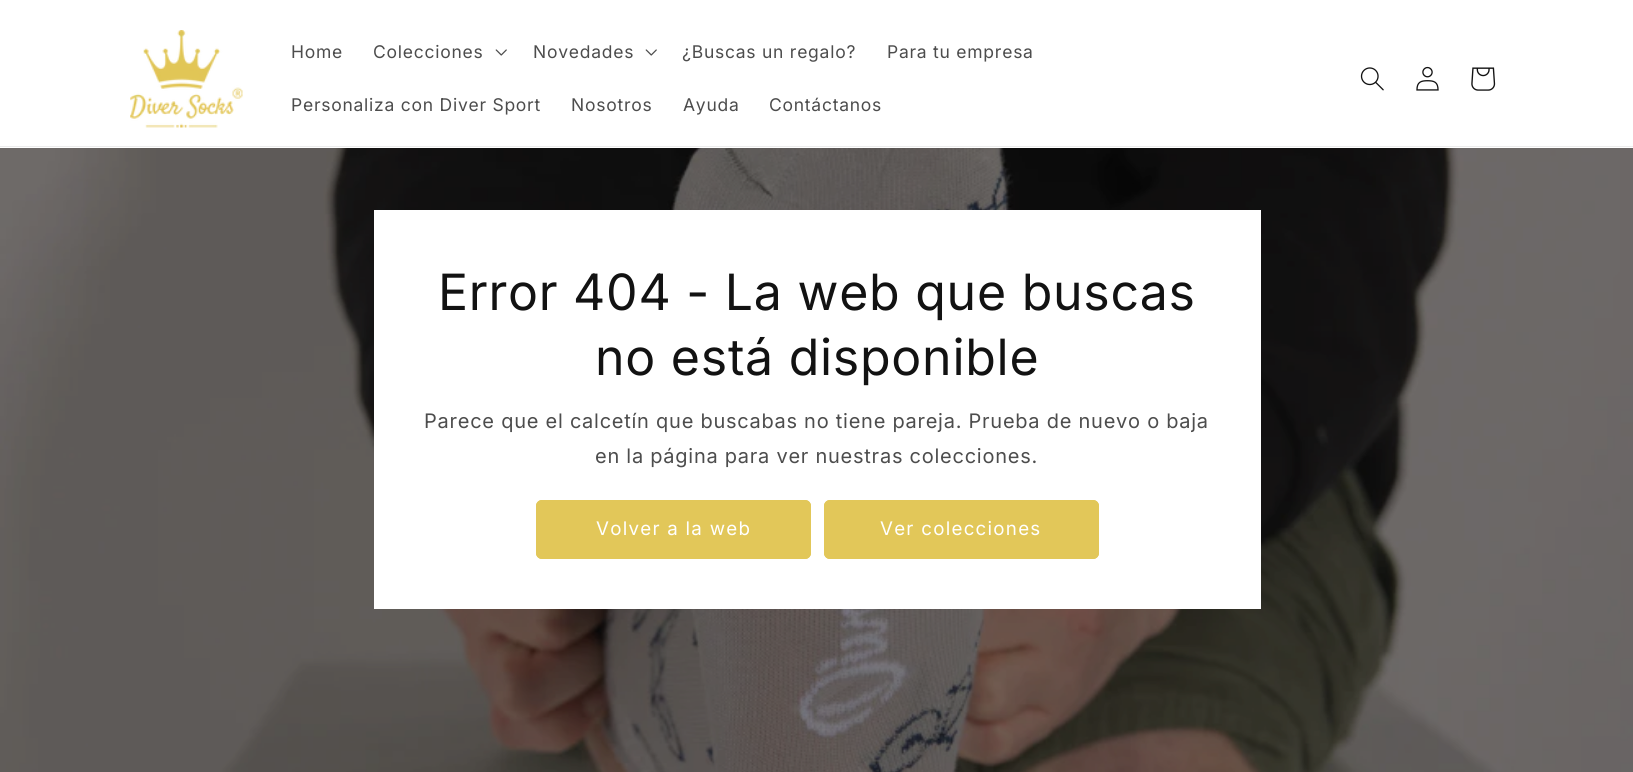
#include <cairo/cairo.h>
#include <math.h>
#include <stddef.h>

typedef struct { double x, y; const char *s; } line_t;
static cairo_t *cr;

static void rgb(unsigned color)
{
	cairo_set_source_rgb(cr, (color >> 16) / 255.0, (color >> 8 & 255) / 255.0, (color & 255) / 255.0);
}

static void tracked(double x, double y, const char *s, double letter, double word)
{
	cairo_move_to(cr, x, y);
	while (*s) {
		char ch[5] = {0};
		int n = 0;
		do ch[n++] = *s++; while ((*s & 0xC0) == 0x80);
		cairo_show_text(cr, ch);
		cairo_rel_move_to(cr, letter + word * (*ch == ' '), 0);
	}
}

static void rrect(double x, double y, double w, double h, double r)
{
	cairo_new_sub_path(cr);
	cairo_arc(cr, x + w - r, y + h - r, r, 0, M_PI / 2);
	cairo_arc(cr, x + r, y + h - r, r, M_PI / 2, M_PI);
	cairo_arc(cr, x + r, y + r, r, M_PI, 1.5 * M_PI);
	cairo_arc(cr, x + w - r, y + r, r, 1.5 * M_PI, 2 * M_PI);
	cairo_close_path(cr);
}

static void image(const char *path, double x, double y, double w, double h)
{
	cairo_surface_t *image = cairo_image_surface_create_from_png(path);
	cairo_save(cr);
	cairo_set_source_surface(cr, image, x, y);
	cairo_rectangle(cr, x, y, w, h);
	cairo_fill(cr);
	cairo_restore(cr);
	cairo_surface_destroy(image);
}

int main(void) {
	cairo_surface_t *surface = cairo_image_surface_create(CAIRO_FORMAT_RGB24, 1633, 772);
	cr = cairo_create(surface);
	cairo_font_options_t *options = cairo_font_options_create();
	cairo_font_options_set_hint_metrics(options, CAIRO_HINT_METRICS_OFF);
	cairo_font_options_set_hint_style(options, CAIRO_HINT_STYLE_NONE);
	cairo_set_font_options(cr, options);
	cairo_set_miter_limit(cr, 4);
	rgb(0xffffff);
	cairo_paint(cr);
	rgb(0xececec);
	cairo_rectangle(cr, 0, 146, 1633, 1);
	cairo_fill(cr);
	image("img/1.png", 130, 30, 113, 98);
	image("img/2.png", 495, 49, 12, 7);
	image("img/2.png", 645, 49, 12, 7);
	image("img/3.png", 1360, 67, 24, 24);
	image("img/4.png", 1416, 66, 23, 25);
	image("img/5.png", 1471, 67, 25, 24);
	image("img/6.png", 0, 148, 1633, 624);
	rgb(0xffffff);
	cairo_rectangle(cr, 374, 210, 887, 399);
	cairo_fill(cr);
	rgb(0xe2c759);
	rrect(536, 500, 275, 59, 6);
	cairo_fill(cr);
	rrect(536.5, 500.5, 274, 58, 5.5);
	cairo_set_line_width(cr, 1);
	cairo_stroke(cr);
	rrect(824, 500, 275, 59, 6);
	cairo_fill(cr);
	rrect(824.5, 500.5, 274, 58, 5.5);
	cairo_stroke(cr);
	cairo_select_font_face(cr, "Inter", CAIRO_FONT_SLANT_NORMAL, CAIRO_FONT_WEIGHT_NORMAL);
	cairo_set_font_size(cr, 17.5);
	rgb(0x4d4d4d);
	{
		static const line_t items[] = {
			{291, 58, "Home"},
			{373, 58, "Colecciones"},
			{533, 58, "Novedades"},
			{682, 58, "¿Buscas un regalo?"},
			{887, 58, "Para tu empresa"},
			{291, 111, "Personaliza con Diver Sport"},
			{571, 111, "Nosotros"},
			{683, 111, "Ayuda"},
			{769, 111, "Contáctanos"},
		};
		for (size_t i = 0; i < sizeof items / sizeof *items; i++) {
			tracked(items[i].x, items[i].y, items[i].s, 0.75, 0);
		}
	}
	cairo_set_font_size(cr, 50);
	rgb(0x121212);
	tracked(438, 310, "Error 404 - La web que buscas", 0.75, 0);
	tracked(595, 375, "no está disponible", 0.75, 0);
	cairo_set_font_size(cr, 20);
	rgb(0x4d4d4d);
	tracked(424, 428, "Parece que el calcetín que buscabas no tiene pareja. Prueba de nuevo o baja", 0.75, 0);
	tracked(595, 463, "en la página para ver nuestras colecciones.", 0.75, 0);
	cairo_set_font_size(cr, 18.75);
	rgb(0xffffff);
	tracked(596, 535, "Volver a la web", 1.25, 0);
	tracked(880, 535, "Ver colecciones", 1.25, 0);
	cairo_surface_write_to_png(surface, "page.png");
	cairo_font_options_destroy(options);
	cairo_destroy(cr);
	cairo_surface_destroy(surface);
	return 0;
}
